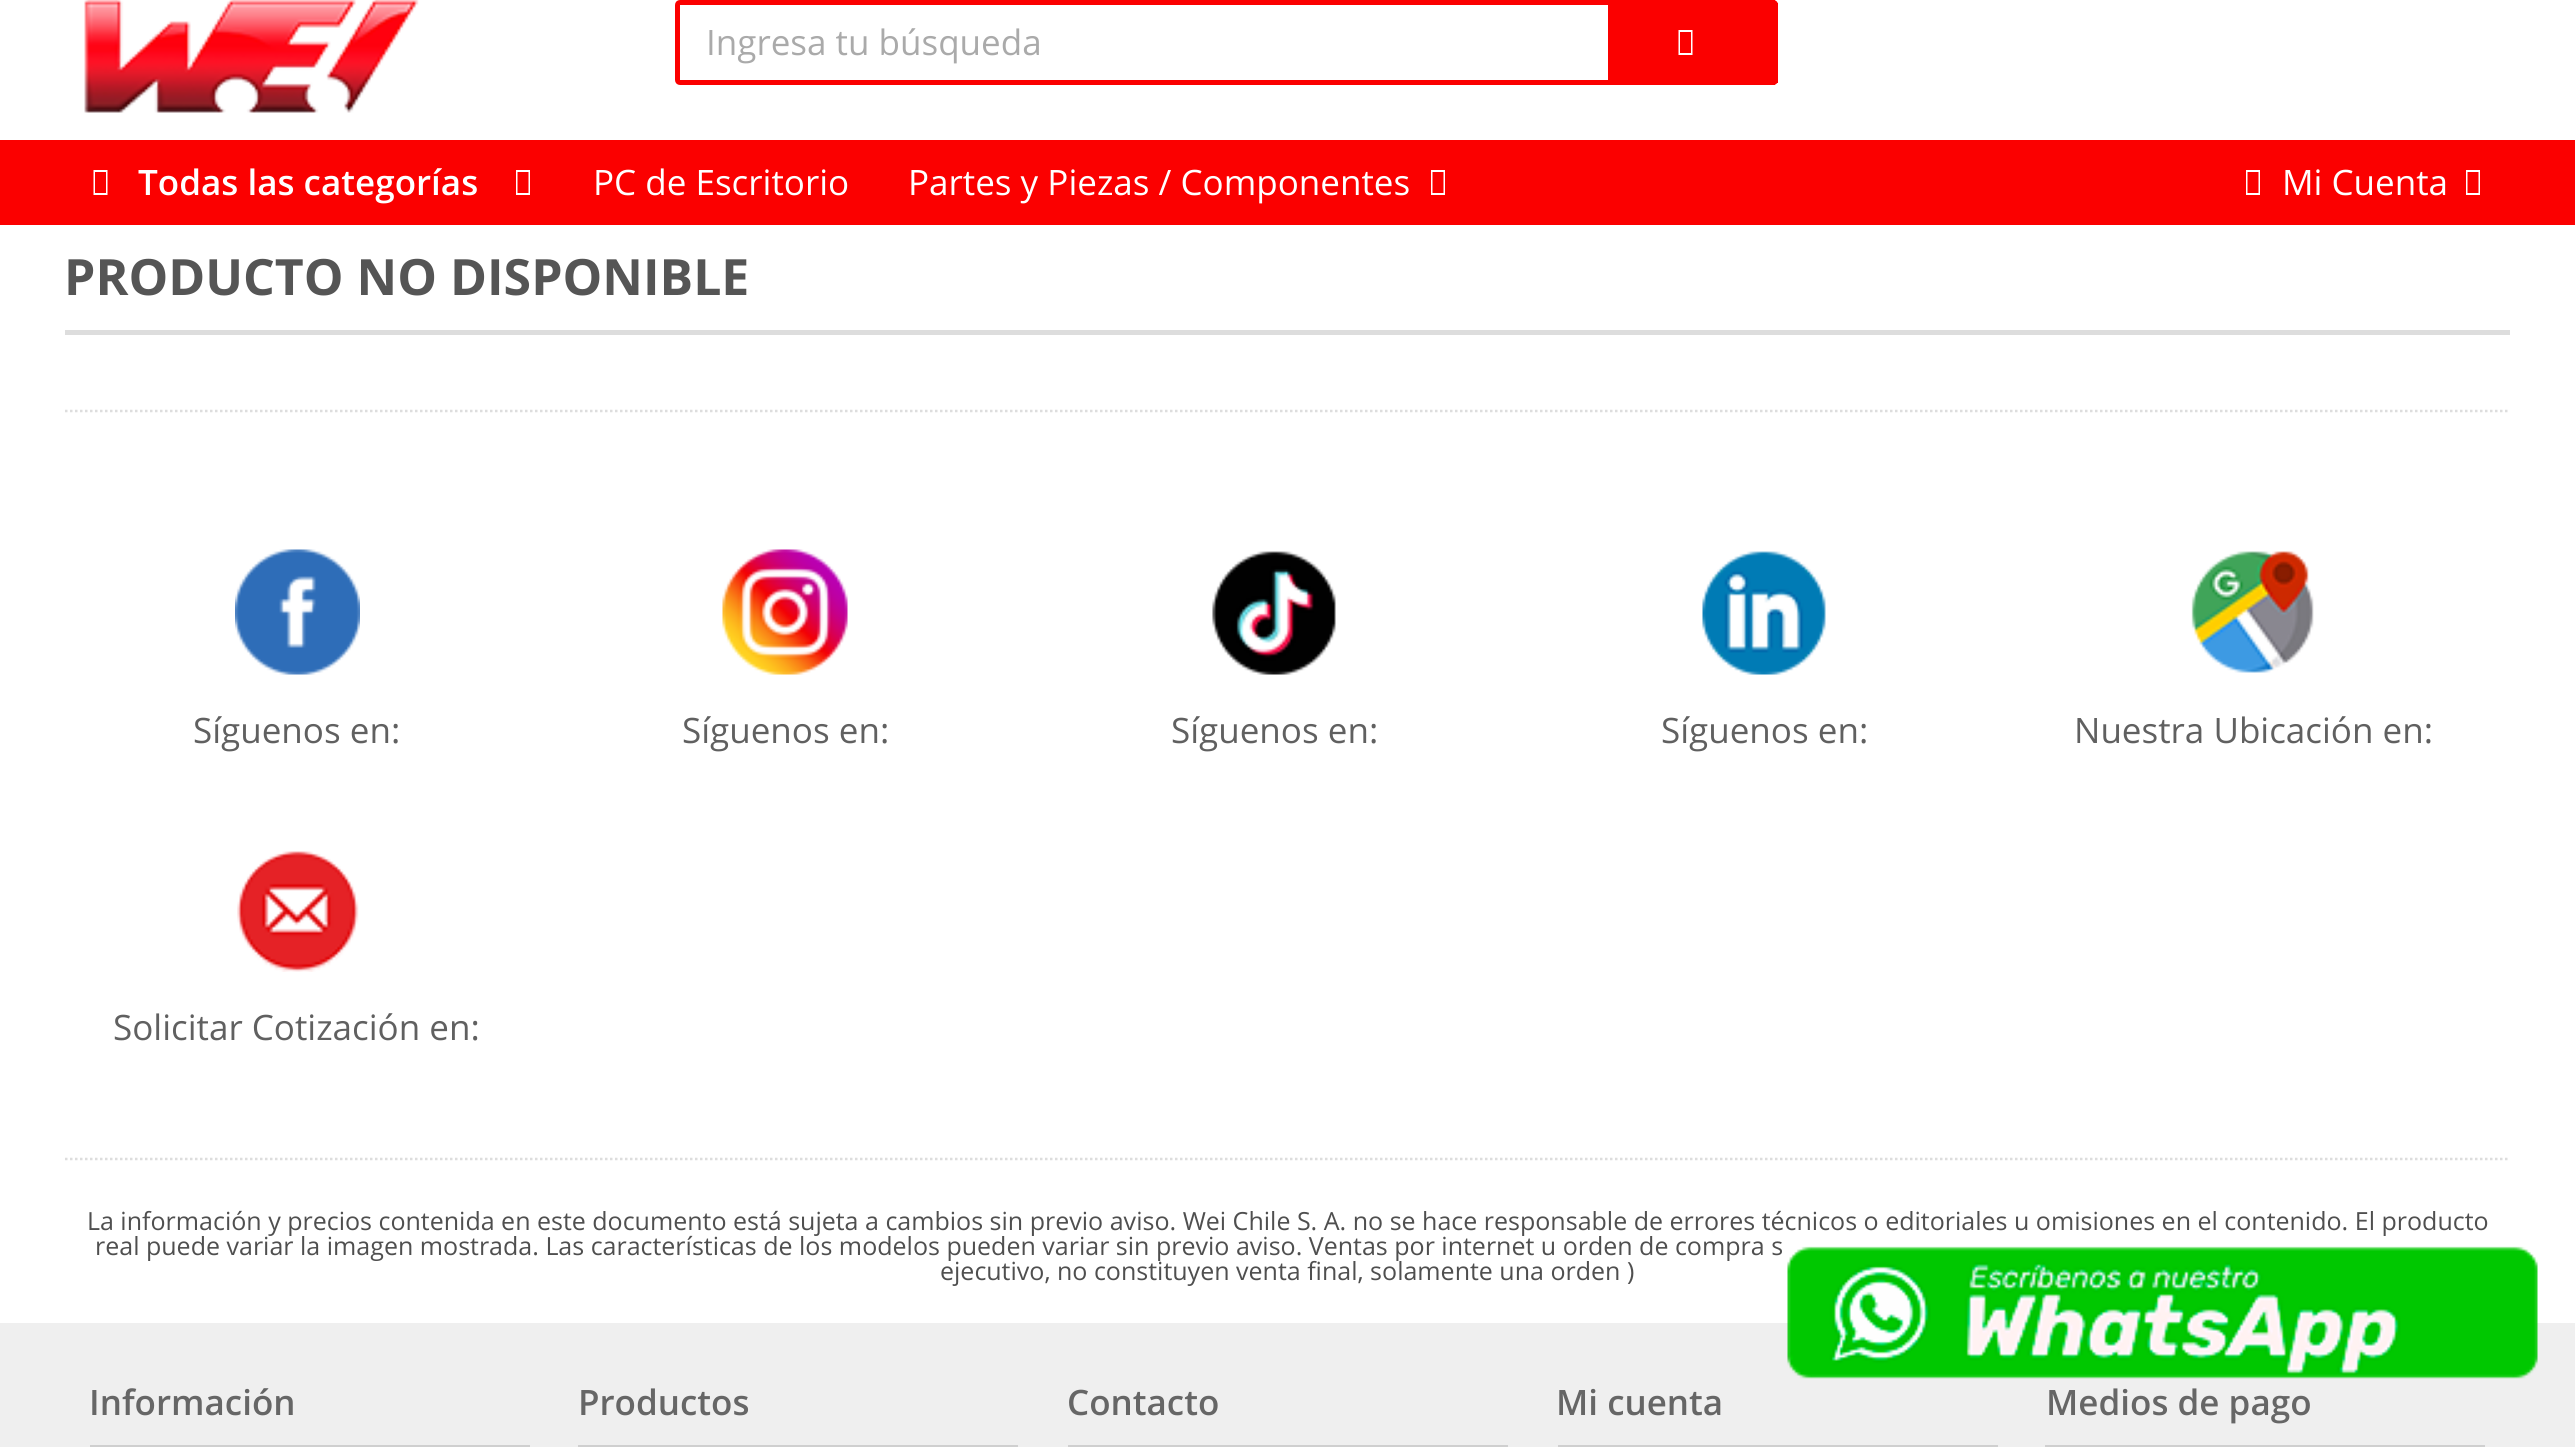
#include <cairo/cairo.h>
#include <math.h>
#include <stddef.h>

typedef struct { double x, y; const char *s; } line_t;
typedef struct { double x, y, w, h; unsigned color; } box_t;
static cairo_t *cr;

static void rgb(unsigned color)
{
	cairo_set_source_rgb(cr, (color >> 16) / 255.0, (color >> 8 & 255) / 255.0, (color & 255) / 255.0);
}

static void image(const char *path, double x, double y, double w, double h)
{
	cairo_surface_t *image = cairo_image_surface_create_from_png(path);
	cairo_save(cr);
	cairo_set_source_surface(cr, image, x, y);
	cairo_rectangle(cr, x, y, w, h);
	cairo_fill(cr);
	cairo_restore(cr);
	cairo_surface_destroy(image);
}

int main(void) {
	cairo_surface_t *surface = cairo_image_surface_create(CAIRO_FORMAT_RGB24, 2575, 1447);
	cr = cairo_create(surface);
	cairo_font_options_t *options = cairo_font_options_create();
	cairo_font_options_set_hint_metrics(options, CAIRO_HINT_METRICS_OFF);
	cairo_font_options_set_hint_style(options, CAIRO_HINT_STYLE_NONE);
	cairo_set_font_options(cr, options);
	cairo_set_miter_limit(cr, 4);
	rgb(0xffffff);
	cairo_paint(cr);
	image("img/1.png", 84, 0, 335, 113);
	cairo_new_path(cr);
	cairo_move_to(cr, 680, 2.5);
	cairo_line_to(cr, 1610.5, 2.5);
	cairo_line_to(cr, 1610.5, 82.5);
	cairo_line_to(cr, 680, 82.5);
	cairo_curve_to(cr, 678.5, 82.5, 677.5, 81.5, 677.5, 80);
	cairo_line_to(cr, 677.5, 5);
	cairo_curve_to(cr, 677.5, 3.5, 678.5, 2.5, 680, 2.5);
	cairo_close_path(cr);
	rgb(0xfb0000);
	cairo_set_line_width(cr, 5);
	cairo_stroke(cr);
	cairo_new_path(cr);
	cairo_move_to(cr, 1613, 0);
	cairo_line_to(cr, 1773, 0);
	cairo_curve_to(cr, 1776, 0, 1778, 2, 1778, 5);
	cairo_line_to(cr, 1778, 80);
	cairo_curve_to(cr, 1778, 83, 1776, 85, 1773, 85);
	cairo_line_to(cr, 1613, 85);
	cairo_close_path(cr);
	cairo_fill(cr);
	{
		static const box_t items[] = {
			{1773, 0, 2, 1, 0xfb0000},
			{1777, 3, 1, 80, 0xfb0000},
			{1773, 84, 2, 1, 0xfb0000},
		};
		for (size_t i = 0; i < sizeof items / sizeof *items; i++) {
			rgb(items[i].color);
			cairo_rectangle(cr, items[i].x, items[i].y, items[i].w, items[i].h);
			cairo_fill(cr);
		}
	}
	rgb(0xffffff);
	cairo_new_path(cr);
	cairo_move_to(cr, 1678.5, 55);
	cairo_line_to(cr, 1678.5, 30);
	cairo_line_to(cr, 1692.5, 30);
	cairo_line_to(cr, 1692.5, 55);
	cairo_close_path(cr);
	cairo_move_to(cr, 1680, 53);
	cairo_line_to(cr, 1691, 53);
	cairo_line_to(cr, 1691, 32);
	cairo_line_to(cr, 1680, 32);
	cairo_close_path(cr);
	cairo_fill(cr);
	rgb(0xfb0000);
	cairo_rectangle(cr, 0, 140, 2575, 85);
	cairo_fill(cr);
	rgb(0xffffff);
	cairo_new_path(cr);
	cairo_move_to(cr, 93.5, 195);
	cairo_line_to(cr, 93.5, 170);
	cairo_line_to(cr, 107.5, 170);
	cairo_line_to(cr, 107.5, 195);
	cairo_close_path(cr);
	cairo_move_to(cr, 95, 193);
	cairo_line_to(cr, 106, 193);
	cairo_line_to(cr, 106, 172);
	cairo_line_to(cr, 95, 172);
	cairo_close_path(cr);
	cairo_fill(cr);
	cairo_new_path(cr);
	cairo_move_to(cr, 516, 195);
	cairo_line_to(cr, 516, 170);
	cairo_line_to(cr, 530, 170);
	cairo_line_to(cr, 530, 195);
	cairo_close_path(cr);
	cairo_move_to(cr, 517.5, 193);
	cairo_line_to(cr, 528.5, 193);
	cairo_line_to(cr, 528.5, 172);
	cairo_line_to(cr, 517.5, 172);
	cairo_close_path(cr);
	cairo_fill(cr);
	cairo_new_path(cr);
	cairo_move_to(cr, 1431, 195);
	cairo_line_to(cr, 1431, 170);
	cairo_line_to(cr, 1445, 170);
	cairo_line_to(cr, 1445, 195);
	cairo_close_path(cr);
	cairo_move_to(cr, 1432.5, 193);
	cairo_line_to(cr, 1443.5, 193);
	cairo_line_to(cr, 1443.5, 172);
	cairo_line_to(cr, 1432.5, 172);
	cairo_close_path(cr);
	cairo_fill(cr);
	cairo_new_path(cr);
	cairo_move_to(cr, 2246, 195);
	cairo_line_to(cr, 2246, 170);
	cairo_line_to(cr, 2260, 170);
	cairo_line_to(cr, 2260, 195);
	cairo_close_path(cr);
	cairo_move_to(cr, 2247.5, 193);
	cairo_line_to(cr, 2258.5, 193);
	cairo_line_to(cr, 2258.5, 172);
	cairo_line_to(cr, 2247.5, 172);
	cairo_close_path(cr);
	cairo_fill(cr);
	cairo_new_path(cr);
	cairo_move_to(cr, 2466, 195);
	cairo_line_to(cr, 2466, 170);
	cairo_line_to(cr, 2480, 170);
	cairo_line_to(cr, 2480, 195);
	cairo_close_path(cr);
	cairo_move_to(cr, 2467.5, 193);
	cairo_line_to(cr, 2478.5, 193);
	cairo_line_to(cr, 2478.5, 172);
	cairo_line_to(cr, 2467.5, 172);
	cairo_close_path(cr);
	cairo_fill(cr);
	rgb(0xdddddd);
	cairo_rectangle(cr, 65, 330, 2445, 5);
	cairo_fill(cr);
	cairo_new_path(cr);
	cairo_move_to(cr, 65, 411);
	cairo_line_to(cr, 2510, 411);
	cairo_set_line_width(cr, 2.5);
	cairo_set_dash(cr, (double[]){2.5, 2.5}, 2, 0);
	cairo_stroke(cr);
	image("img/2.png", 235, 549, 125, 126);
	image("img/3.png", 722, 549, 126, 126);
	image("img/4.png", 1212, 551, 124, 124);
	image("img/5.png", 1702, 551, 124, 124);
	image("img/6.png", 2191, 551, 123, 122);
	image("img/7.png", 237, 851, 122, 121);
	cairo_new_path(cr);
	cairo_move_to(cr, 65, 1159);
	cairo_line_to(cr, 2510, 1159);
	cairo_stroke(cr);
	rgb(0xefefef);
	cairo_rectangle(cr, 0, 1323, 2575, 124);
	cairo_fill(cr);
	image("img/8.png", 1787, 1246, 751, 133);
	{
		static const box_t items[] = {
			{90, 1445, 440, 2, 0xcfcfcf},
			{578, 1445, 440, 2, 0xcfcfcf},
			{1068, 1445, 440, 2, 0xcfcfcf},
			{1558, 1445, 440, 2, 0xcfcfcf},
			{2045, 1445, 440, 2, 0xcfcfcf},
		};
		for (size_t i = 0; i < sizeof items / sizeof *items; i++) {
			rgb(items[i].color);
			cairo_rectangle(cr, items[i].x, items[i].y, items[i].w, items[i].h);
			cairo_fill(cr);
		}
	}
	cairo_select_font_face(cr, "Open Sans", CAIRO_FONT_SLANT_NORMAL, CAIRO_FONT_WEIGHT_NORMAL);
	cairo_set_font_size(cr, 35);
	rgb(0xaaaaaa);
	cairo_move_to(cr, 706, 55);
	cairo_show_text(cr, "Ingresa tu búsqueda");
	cairo_select_font_face(cr, "Open Sans SemiBold", CAIRO_FONT_SLANT_NORMAL, CAIRO_FONT_WEIGHT_NORMAL);
	rgb(0xffffff);
	cairo_move_to(cr, 138, 195);
	cairo_show_text(cr, "Todas las categorías");
	cairo_select_font_face(cr, "Open Sans", CAIRO_FONT_SLANT_NORMAL, CAIRO_FONT_WEIGHT_NORMAL);
	{
		static const line_t items[] = {
			{593, 195, "PC de Escritorio"},
			{908, 195, "Partes y Piezas / Componentes"},
			{2282, 195, "Mi Cuenta"},
		};
		for (size_t i = 0; i < sizeof items / sizeof *items; i++) {
			cairo_move_to(cr, items[i].x, items[i].y);
			cairo_show_text(cr, items[i].s);
		}
	}
	cairo_select_font_face(cr, "Open Sans", CAIRO_FONT_SLANT_NORMAL, CAIRO_FONT_WEIGHT_BOLD);
	cairo_set_font_size(cr, 50);
	rgb(0x555555);
	cairo_move_to(cr, 64, 295);
	cairo_show_text(cr, "PRODUCTO NO DISPONIBLE");
	cairo_select_font_face(cr, "Open Sans", CAIRO_FONT_SLANT_NORMAL, CAIRO_FONT_WEIGHT_NORMAL);
	cairo_set_font_size(cr, 35);
	rgb(0x606060);
	{
		static const line_t items[] = {
			{193, 743, "Síguenos en:"},
			{682, 743, "Síguenos en:"},
			{1171, 743, "Síguenos en:"},
			{1661, 743, "Síguenos en:"},
			{2074, 743, "Nuestra Ubicación en:"},
			{113, 1040, "Solicitar Cotización en:"},
		};
		for (size_t i = 0; i < sizeof items / sizeof *items; i++) {
			cairo_move_to(cr, items[i].x, items[i].y);
			cairo_show_text(cr, items[i].s);
		}
	}
	cairo_set_font_size(cr, 25);
	rgb(0x4f4f4f);
	{
		static const line_t items[] = {
			{87, 1230, "La información y precios contenida en este documento está sujeta a cambios sin previo aviso. Wei Chile S. A. no se hace responsable de errores técnicos o editoriales u omisiones en el contenido. El producto"},
			{95, 1255, "real puede variar la imagen mostrada. Las características de los modelos pueden variar sin previo aviso. Ventas por internet u orden de compra s"},
			{940, 1280, "ejecutivo, no constituyen venta final, solamente una orden )"},
		};
		for (size_t i = 0; i < sizeof items / sizeof *items; i++) {
			cairo_move_to(cr, items[i].x, items[i].y);
			cairo_show_text(cr, items[i].s);
		}
	}
	cairo_select_font_face(cr, "Open Sans SemiBold", CAIRO_FONT_SLANT_NORMAL, CAIRO_FONT_WEIGHT_NORMAL);
	cairo_set_font_size(cr, 35);
	rgb(0x666666);
	{
		static const line_t items[] = {
			{89, 1415, "Información"},
			{578, 1415, "Productos"},
			{1067, 1415, "Contacto"},
			{1556, 1415, "Mi cuenta"},
			{2046, 1415, "Medios de pago"},
		};
		for (size_t i = 0; i < sizeof items / sizeof *items; i++) {
			cairo_move_to(cr, items[i].x, items[i].y);
			cairo_show_text(cr, items[i].s);
		}
	}
	cairo_surface_write_to_png(surface, "page.png");
	cairo_font_options_destroy(options);
	cairo_destroy(cr);
	cairo_surface_destroy(surface);
	return 0;
}
